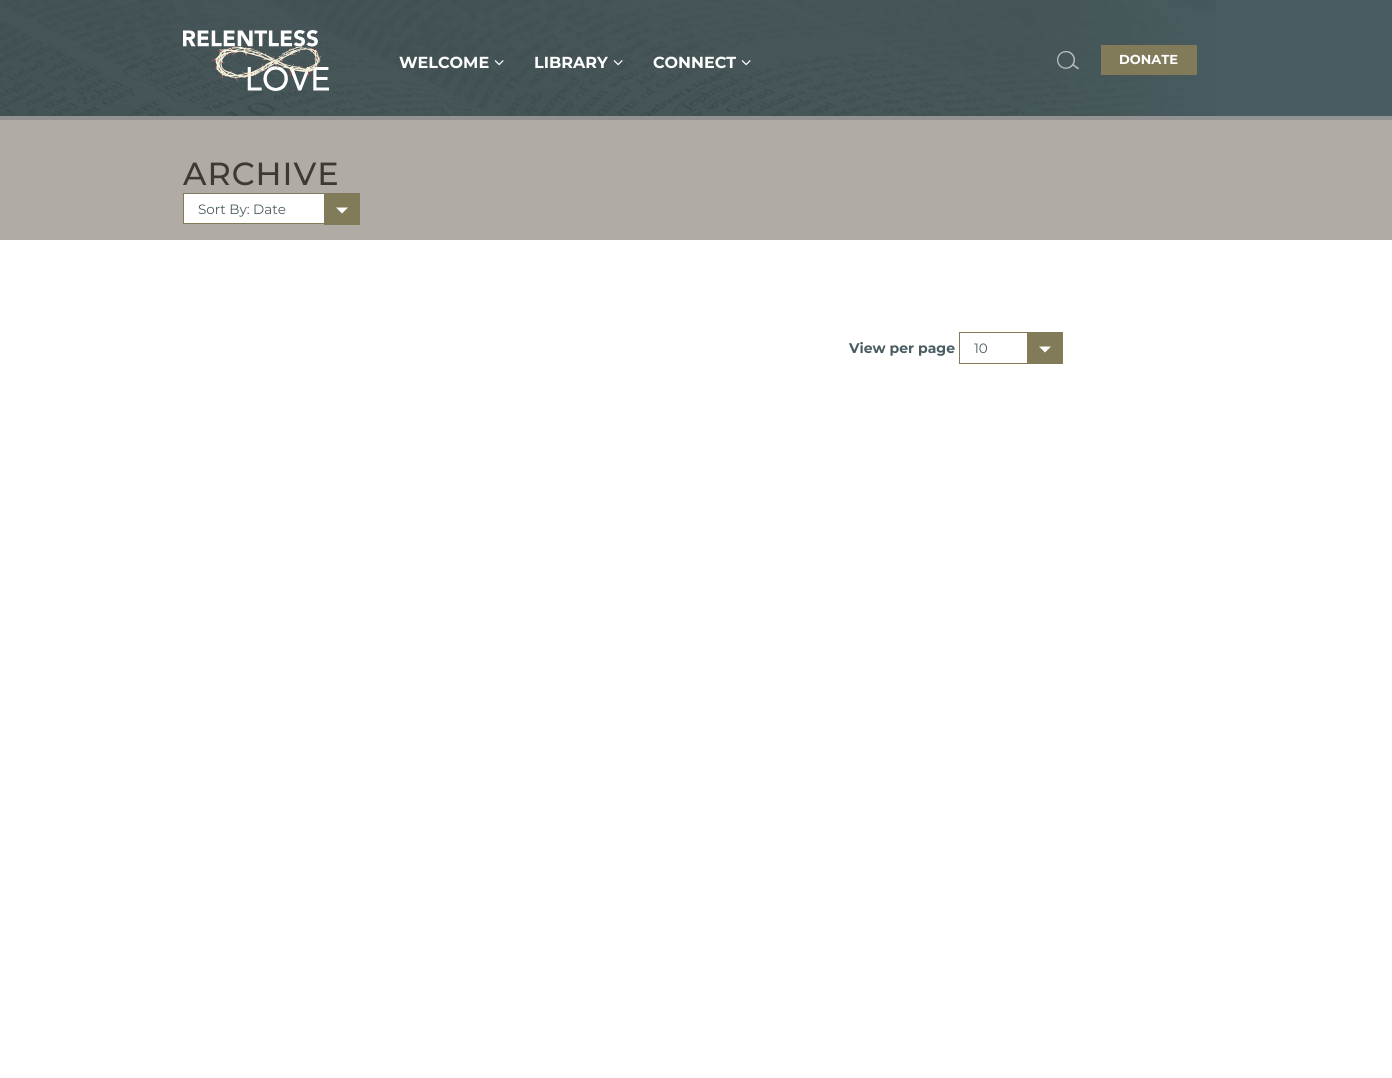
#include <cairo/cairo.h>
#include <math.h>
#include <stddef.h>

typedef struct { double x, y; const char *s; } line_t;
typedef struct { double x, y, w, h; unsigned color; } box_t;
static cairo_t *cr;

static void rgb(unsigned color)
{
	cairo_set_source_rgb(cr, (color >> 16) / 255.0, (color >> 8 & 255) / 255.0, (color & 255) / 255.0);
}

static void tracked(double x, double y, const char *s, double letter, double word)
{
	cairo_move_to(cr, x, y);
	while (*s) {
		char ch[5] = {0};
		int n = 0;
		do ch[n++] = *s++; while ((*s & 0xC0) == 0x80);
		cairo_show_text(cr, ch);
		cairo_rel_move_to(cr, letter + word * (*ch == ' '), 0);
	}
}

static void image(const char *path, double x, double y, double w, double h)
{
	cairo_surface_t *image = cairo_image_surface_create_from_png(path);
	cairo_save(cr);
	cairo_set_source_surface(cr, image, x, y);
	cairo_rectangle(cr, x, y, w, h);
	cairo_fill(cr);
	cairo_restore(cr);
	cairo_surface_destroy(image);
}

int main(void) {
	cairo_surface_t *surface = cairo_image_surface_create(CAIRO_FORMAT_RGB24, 1392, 1078);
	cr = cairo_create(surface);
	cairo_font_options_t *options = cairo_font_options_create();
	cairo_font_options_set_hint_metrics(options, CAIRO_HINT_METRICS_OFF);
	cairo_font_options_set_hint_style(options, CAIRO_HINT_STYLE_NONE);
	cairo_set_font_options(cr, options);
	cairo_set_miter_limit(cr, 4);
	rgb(0xffffff);
	cairo_paint(cr);
	rgb(0x495c61);
	cairo_rectangle(cr, 1216, 0, 176, 116);
	cairo_fill(cr);
	image("img/1.png", 0, 0, 1216, 116);
	rgb(0x939393);
	cairo_rectangle(cr, 0, 116, 1392, 4);
	cairo_fill(cr);
	image("img/2.png", 183, 30, 146, 61);
	image("img/3.png", 494, 60, 10, 6);
	image("img/4.png", 613, 60, 10, 6);
	image("img/5.png", 741, 60, 10, 6);
	image("img/6.png", 1057, 51, 22, 19);
	{
		static const box_t items[] = {
			{1101, 45, 96, 30, 0x827b5a},
			{0, 120, 1392, 120, 0xb0aca5},
			{184, 194, 140, 29, 0xffffff},
		};
		for (size_t i = 0; i < sizeof items / sizeof *items; i++) {
			rgb(items[i].color);
			cairo_rectangle(cr, items[i].x, items[i].y, items[i].w, items[i].h);
			cairo_fill(cr);
		}
	}
	cairo_rectangle(cr, 183.5, 193.5, 176, 30);
	rgb(0x827b5a);
	cairo_set_line_width(cr, 1);
	cairo_stroke(cr);
	cairo_rectangle(cr, 324, 194, 36, 31);
	cairo_fill(cr);
	rgb(0xffffff);
	cairo_new_path(cr);
	cairo_move_to(cr, 342, 213.5);
	cairo_line_to(cr, 336, 207.5);
	cairo_line_to(cr, 348, 207.5);
	cairo_close_path(cr);
	cairo_fill(cr);
	cairo_rectangle(cr, 959.5, 332.5, 103, 31);
	rgb(0x827b5a);
	cairo_stroke(cr);
	cairo_rectangle(cr, 1027, 333, 35, 30);
	cairo_fill(cr);
	rgb(0xffffff);
	cairo_new_path(cr);
	cairo_move_to(cr, 1045, 352.5);
	cairo_line_to(cr, 1039, 346.5);
	cairo_line_to(cr, 1051, 346.5);
	cairo_close_path(cr);
	cairo_fill(cr);
	cairo_select_font_face(cr, "Montserrat", CAIRO_FONT_SLANT_NORMAL, CAIRO_FONT_WEIGHT_BOLD);
	cairo_set_font_size(cr, 16);
	{
		static const line_t items[] = {
			{399, 68, "WELCOME"},
			{534, 68, "LIBRARY"},
			{653, 68, "CONNECT"},
		};
		for (size_t i = 0; i < sizeof items / sizeof *items; i++) {
			cairo_move_to(cr, items[i].x, items[i].y);
			cairo_show_text(cr, items[i].s);
		}
	}
	cairo_set_font_size(cr, 13);
	cairo_move_to(cr, 1119, 64);
	cairo_show_text(cr, "DONATE");
	cairo_select_font_face(cr, "Montserrat Medium", CAIRO_FONT_SLANT_NORMAL, CAIRO_FONT_WEIGHT_NORMAL);
	cairo_set_font_size(cr, 32);
	rgb(0x3d3a32);
	tracked(183, 185, "ARCHIVE", 1, 0);
	cairo_select_font_face(cr, "Montserrat", CAIRO_FONT_SLANT_NORMAL, CAIRO_FONT_WEIGHT_NORMAL);
	cairo_set_font_size(cr, 13.5);
	rgb(0x495c61);
	cairo_move_to(cr, 198, 214);
	cairo_show_text(cr, "Sort By: Date");
	cairo_select_font_face(cr, "Montserrat", CAIRO_FONT_SLANT_NORMAL, CAIRO_FONT_WEIGHT_BOLD);
	cairo_set_font_size(cr, 14);
	cairo_move_to(cr, 849, 353);
	cairo_show_text(cr, "View per page");
	cairo_select_font_face(cr, "Montserrat", CAIRO_FONT_SLANT_NORMAL, CAIRO_FONT_WEIGHT_NORMAL);
	cairo_set_font_size(cr, 13.5);
	cairo_move_to(cr, 974, 353);
	cairo_show_text(cr, "10");
	cairo_surface_write_to_png(surface, "page.png");
	cairo_font_options_destroy(options);
	cairo_destroy(cr);
	cairo_surface_destroy(surface);
	return 0;
}
